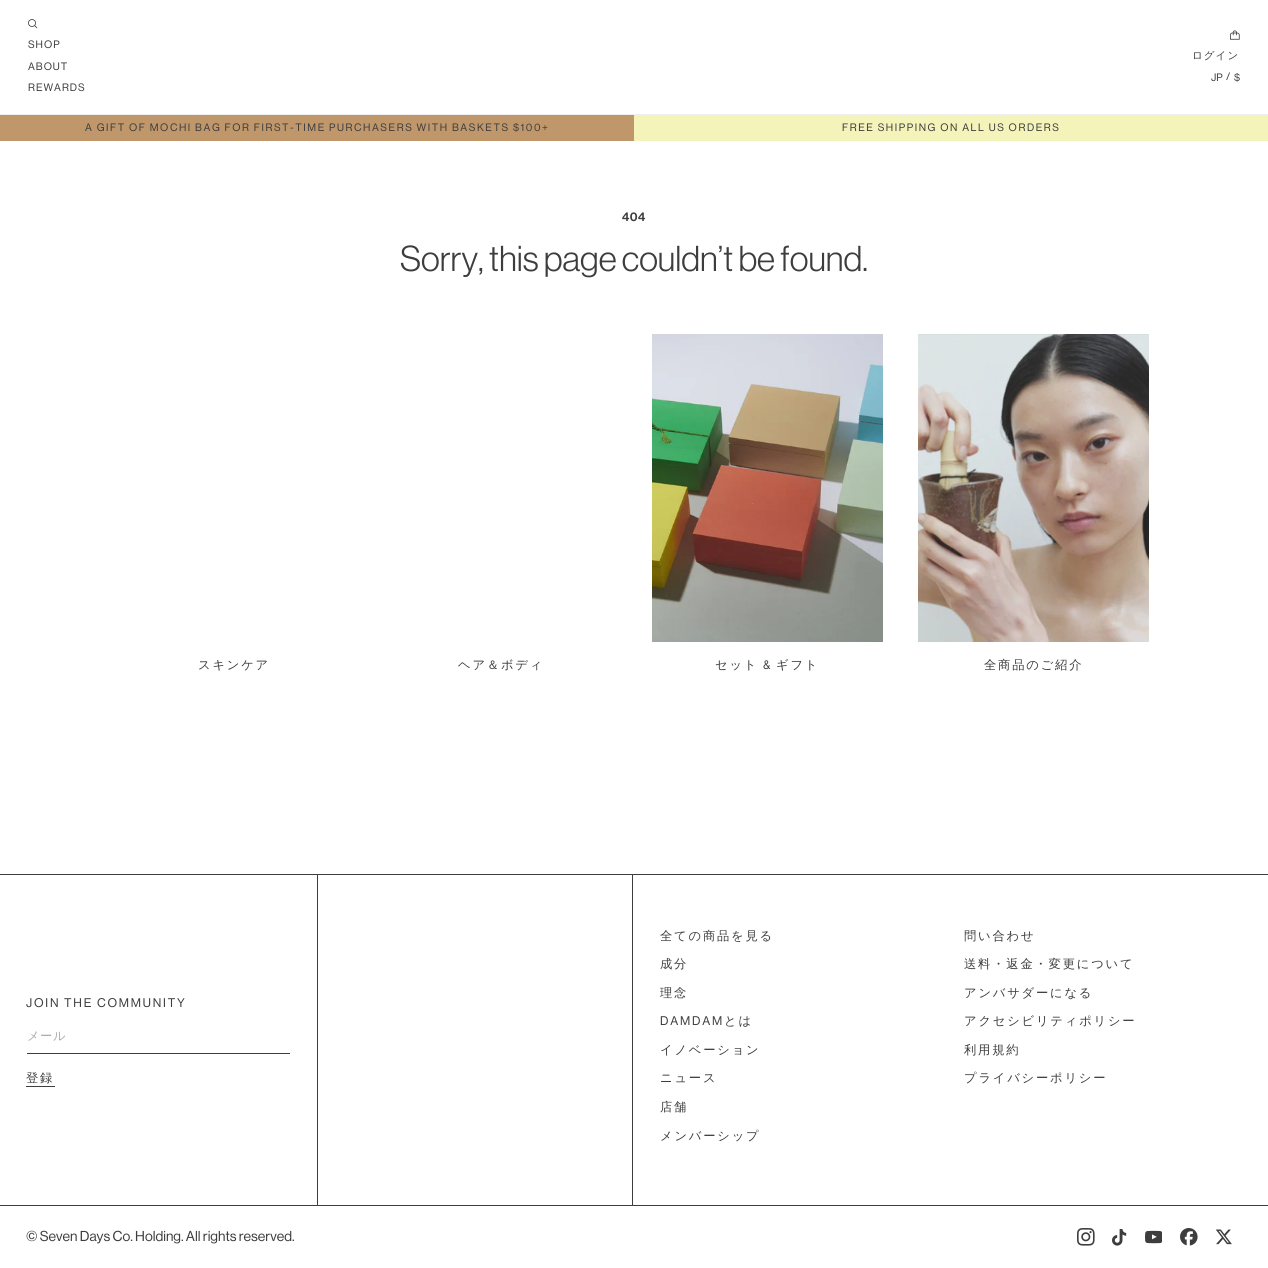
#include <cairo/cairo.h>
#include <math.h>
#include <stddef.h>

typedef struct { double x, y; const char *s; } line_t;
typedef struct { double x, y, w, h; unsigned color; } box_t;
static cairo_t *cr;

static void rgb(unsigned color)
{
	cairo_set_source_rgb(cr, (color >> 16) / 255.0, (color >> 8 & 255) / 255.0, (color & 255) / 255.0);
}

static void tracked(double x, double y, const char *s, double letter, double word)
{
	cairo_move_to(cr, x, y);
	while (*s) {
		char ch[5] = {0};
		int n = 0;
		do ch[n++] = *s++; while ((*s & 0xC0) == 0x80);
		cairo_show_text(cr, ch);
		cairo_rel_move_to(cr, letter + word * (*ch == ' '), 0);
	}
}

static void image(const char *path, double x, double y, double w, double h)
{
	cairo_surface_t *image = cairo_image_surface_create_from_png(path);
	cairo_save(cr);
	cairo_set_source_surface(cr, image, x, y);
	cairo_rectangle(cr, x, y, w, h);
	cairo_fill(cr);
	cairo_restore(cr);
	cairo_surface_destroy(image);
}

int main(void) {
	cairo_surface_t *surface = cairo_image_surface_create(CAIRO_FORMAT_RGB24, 1268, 1268);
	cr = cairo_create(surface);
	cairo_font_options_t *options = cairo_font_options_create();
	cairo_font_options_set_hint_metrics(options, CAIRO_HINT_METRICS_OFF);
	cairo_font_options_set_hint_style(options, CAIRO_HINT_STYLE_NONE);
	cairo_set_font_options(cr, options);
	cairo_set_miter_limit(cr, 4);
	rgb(0xffffff);
	cairo_paint(cr);
	rgb(0xefeff0);
	cairo_rectangle(cr, 0, 114, 1268, 1);
	cairo_fill(cr);
	cairo_arc(cr, 32, 23, 3.5, 0, 2 * M_PI);
	rgb(0x3d3d3e);
	cairo_set_line_width(cr, 0.8);
	cairo_stroke(cr);
	cairo_new_path(cr);
	cairo_move_to(cr, 34.5, 25.5);
	cairo_line_to(cr, 37, 28);
	cairo_stroke(cr);
	image("img/1.png", 1230, 30, 10, 10);
	rgb(0xc0976b);
	cairo_rectangle(cr, 0, 115, 634, 26);
	cairo_fill(cr);
	rgb(0xf4f3ba);
	cairo_rectangle(cr, 634, 115, 634, 26);
	cairo_fill(cr);
	image("img/2.png", 652, 334, 231, 308);
	image("img/3.png", 918, 334, 231, 308);
	{
		static const box_t items[] = {
			{0, 874, 1268, 1, 0x3d3d3e},
			{0, 1205, 1268, 1, 0x3d3d3e},
			{27, 1053, 263, 1, 0x3d3d3e},
			{26, 1086, 29, 1, 0x3d3d3e},
			{632, 875, 1, 330, 0x3d3d3e},
			{317, 875, 1, 330, 0x3d3d3e},
		};
		for (size_t i = 0; i < sizeof items / sizeof *items; i++) {
			rgb(items[i].color);
			cairo_rectangle(cr, items[i].x, items[i].y, items[i].w, items[i].h);
			cairo_fill(cr);
		}
	}
	image("img/4.png", 1077, 1228, 18, 18);
	image("img/5.png", 1112, 1229, 15, 17);
	image("img/6.png", 1145, 1230, 17, 14);
	image("img/7.png", 1180, 1228, 18, 18);
	image("img/8.png", 1215, 1229, 17, 16);
	cairo_select_font_face(cr, "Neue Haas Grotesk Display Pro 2 Medium", CAIRO_FONT_SLANT_NORMAL, CAIRO_FONT_WEIGHT_NORMAL);
	cairo_set_font_size(cr, 10.55);
	{
		static const line_t items[] = {
			{28, 48, "SHOP"},
			{28, 70, "ABOUT"},
			{28, 91, "REWARDS"},
		};
		for (size_t i = 0; i < sizeof items / sizeof *items; i++) {
			tracked(items[i].x, items[i].y, items[i].s, 1, 0);
		}
	}
	cairo_select_font_face(cr, "WenQuanYi Zen Hei Medium", CAIRO_FONT_SLANT_NORMAL, CAIRO_FONT_WEIGHT_NORMAL);
	tracked(1192, 59, "ログイン", 1, 0);
	cairo_select_font_face(cr, "Neue Haas Grotesk Display Pro 2 Medium", CAIRO_FONT_SLANT_NORMAL, CAIRO_FONT_WEIGHT_NORMAL);
	cairo_move_to(cr, 1211, 81);
	cairo_show_text(cr, "JP");
	tracked(1226, 80, "/", 1, 0);
	cairo_move_to(cr, 1234, 81);
	cairo_show_text(cr, "$");
	tracked(85, 131, "A GIFT OF MOCHI BAG FOR FIRST-TIME PURCHASERS WITH BASKETS $100+", 1.58, 0);
	tracked(842, 131, "FREE SHIPPING ON ALL US ORDERS", 1.58, 0);
	cairo_select_font_face(cr, "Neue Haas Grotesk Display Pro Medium", CAIRO_FONT_SLANT_NORMAL, CAIRO_FONT_WEIGHT_NORMAL);
	cairo_set_font_size(cr, 12.3);
	tracked(622, 221, "404", 0.5, 0);
	cairo_select_font_face(cr, "Neue Haas Grotesk Display Pro", CAIRO_FONT_SLANT_NORMAL, CAIRO_FONT_WEIGHT_NORMAL);
	cairo_set_font_size(cr, 35.25);
	cairo_move_to(cr, 400, 271);
	cairo_show_text(cr, "Sorry, this page couldn’t be found.");
	cairo_select_font_face(cr, "WenQuanYi Zen Hei Medium", CAIRO_FONT_SLANT_NORMAL, CAIRO_FONT_WEIGHT_NORMAL);
	cairo_set_font_size(cr, 12.3);
	{
		static const line_t items[] = {
			{198, 669, "スキンケア"},
			{458, 669, "ヘア＆ボディ"},
			{715, 669, "セット"},
		};
		for (size_t i = 0; i < sizeof items / sizeof *items; i++) {
			tracked(items[i].x, items[i].y, items[i].s, 1.8, 0);
		}
	}
	cairo_select_font_face(cr, "Neue Haas Grotesk Display Pro 2 Medium", CAIRO_FONT_SLANT_NORMAL, CAIRO_FONT_WEIGHT_NORMAL);
	tracked(763, 669, "&", 1.8, 0);
	cairo_select_font_face(cr, "WenQuanYi Zen Hei Medium", CAIRO_FONT_SLANT_NORMAL, CAIRO_FONT_WEIGHT_NORMAL);
	tracked(776, 669, "ギフト", 1.8, 0);
	tracked(984, 669, "全商品のご紹介", 1.8, 0);
	cairo_select_font_face(cr, "Neue Haas Grotesk Display Pro 2 Medium", CAIRO_FONT_SLANT_NORMAL, CAIRO_FONT_WEIGHT_NORMAL);
	tracked(26, 1007, "JOIN THE COMMUNITY", 1.8, 0);
	cairo_select_font_face(cr, "WenQuanYi Zen Hei Medium", CAIRO_FONT_SLANT_NORMAL, CAIRO_FONT_WEIGHT_NORMAL);
	rgb(0xacacac);
	tracked(27, 1040, "メール", 0.5, 0);
	rgb(0x3d3d3e);
	{
		static const line_t items[] = {
			{26, 1082, "登録"},
			{660, 940, "全ての商品を見る"},
			{660, 968, "成分"},
			{660, 997, "理念"},
		};
		for (size_t i = 0; i < sizeof items / sizeof *items; i++) {
			tracked(items[i].x, items[i].y, items[i].s, 1.8, 0);
		}
	}
	cairo_select_font_face(cr, "Neue Haas Grotesk Display Pro 2 Medium", CAIRO_FONT_SLANT_NORMAL, CAIRO_FONT_WEIGHT_NORMAL);
	tracked(660, 1025, "DAMDAM", 1.8, 0);
	cairo_select_font_face(cr, "WenQuanYi Zen Hei Medium", CAIRO_FONT_SLANT_NORMAL, CAIRO_FONT_WEIGHT_NORMAL);
	{
		static const line_t items[] = {
			{724, 1025, "とは"},
			{660, 1054, "イノベーション"},
			{660, 1082, "ニュース"},
			{660, 1111, "店舗"},
			{660, 1140, "メンバーシップ"},
			{964, 940, "問い合わせ"},
			{964, 968, "送料・返金・変更について"},
			{964, 997, "アンバサダーになる"},
			{964, 1025, "アクセシビリティポリシー"},
			{964, 1054, "利用規約"},
			{964, 1082, "プライバシーポリシー"},
		};
		for (size_t i = 0; i < sizeof items / sizeof *items; i++) {
			tracked(items[i].x, items[i].y, items[i].s, 1.8, 0);
		}
	}
	cairo_select_font_face(cr, "Neue Haas Grotesk Display Pro 2 Medium", CAIRO_FONT_SLANT_NORMAL, CAIRO_FONT_WEIGHT_NORMAL);
	cairo_set_font_size(cr, 14.1);
	cairo_move_to(cr, 26, 1241);
	cairo_show_text(cr, "© Seven Days Co. Holding. All rights reserved.");
	cairo_surface_write_to_png(surface, "page.png");
	cairo_font_options_destroy(options);
	cairo_destroy(cr);
	cairo_surface_destroy(surface);
	return 0;
}
